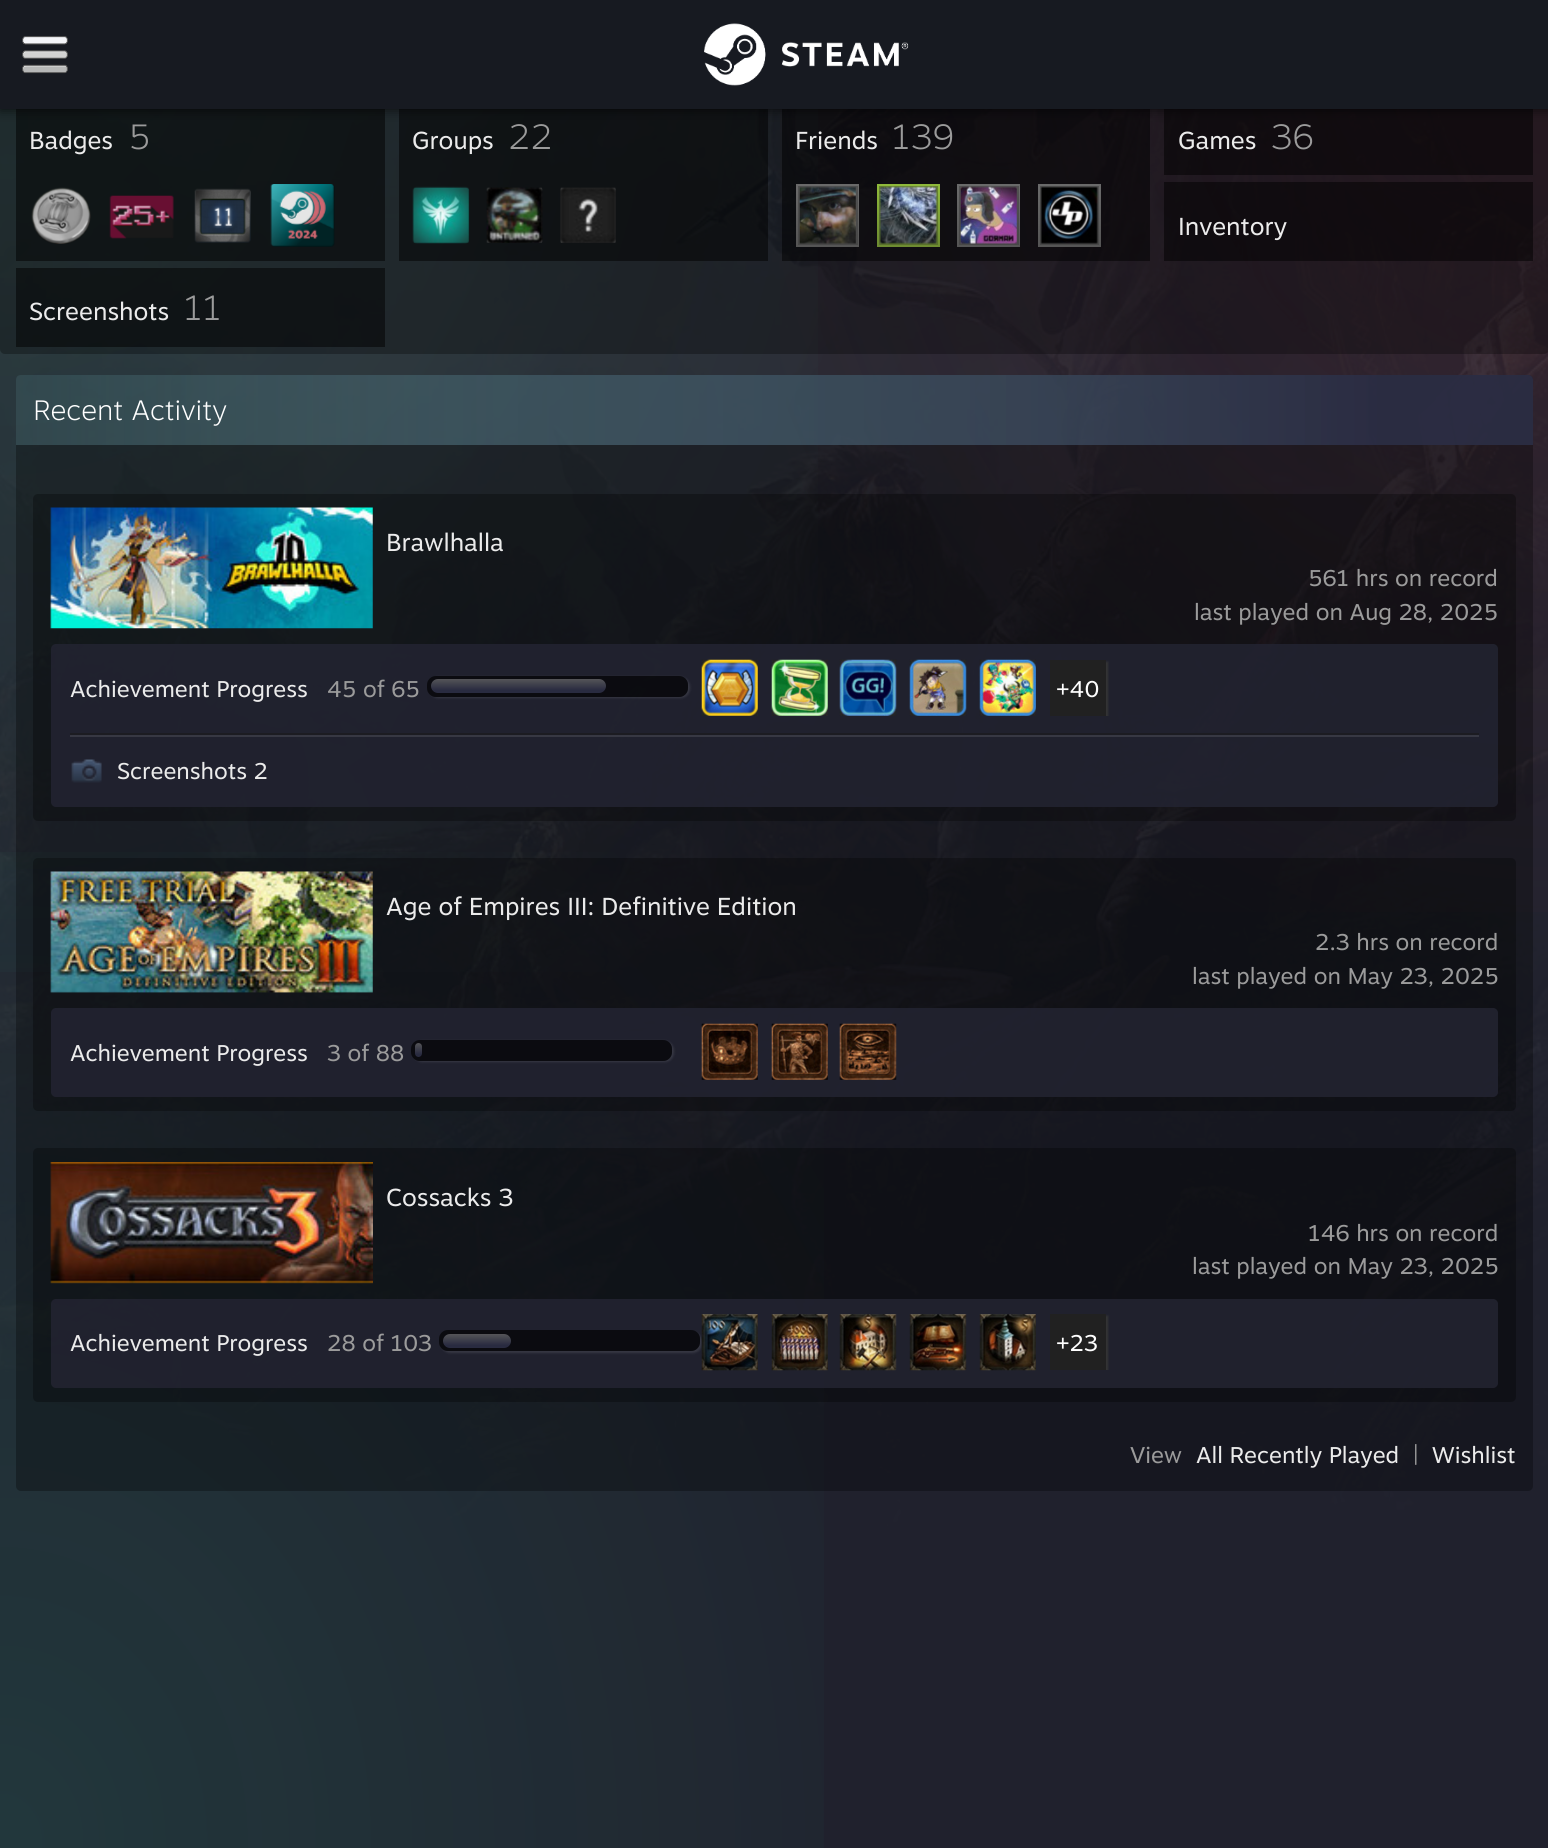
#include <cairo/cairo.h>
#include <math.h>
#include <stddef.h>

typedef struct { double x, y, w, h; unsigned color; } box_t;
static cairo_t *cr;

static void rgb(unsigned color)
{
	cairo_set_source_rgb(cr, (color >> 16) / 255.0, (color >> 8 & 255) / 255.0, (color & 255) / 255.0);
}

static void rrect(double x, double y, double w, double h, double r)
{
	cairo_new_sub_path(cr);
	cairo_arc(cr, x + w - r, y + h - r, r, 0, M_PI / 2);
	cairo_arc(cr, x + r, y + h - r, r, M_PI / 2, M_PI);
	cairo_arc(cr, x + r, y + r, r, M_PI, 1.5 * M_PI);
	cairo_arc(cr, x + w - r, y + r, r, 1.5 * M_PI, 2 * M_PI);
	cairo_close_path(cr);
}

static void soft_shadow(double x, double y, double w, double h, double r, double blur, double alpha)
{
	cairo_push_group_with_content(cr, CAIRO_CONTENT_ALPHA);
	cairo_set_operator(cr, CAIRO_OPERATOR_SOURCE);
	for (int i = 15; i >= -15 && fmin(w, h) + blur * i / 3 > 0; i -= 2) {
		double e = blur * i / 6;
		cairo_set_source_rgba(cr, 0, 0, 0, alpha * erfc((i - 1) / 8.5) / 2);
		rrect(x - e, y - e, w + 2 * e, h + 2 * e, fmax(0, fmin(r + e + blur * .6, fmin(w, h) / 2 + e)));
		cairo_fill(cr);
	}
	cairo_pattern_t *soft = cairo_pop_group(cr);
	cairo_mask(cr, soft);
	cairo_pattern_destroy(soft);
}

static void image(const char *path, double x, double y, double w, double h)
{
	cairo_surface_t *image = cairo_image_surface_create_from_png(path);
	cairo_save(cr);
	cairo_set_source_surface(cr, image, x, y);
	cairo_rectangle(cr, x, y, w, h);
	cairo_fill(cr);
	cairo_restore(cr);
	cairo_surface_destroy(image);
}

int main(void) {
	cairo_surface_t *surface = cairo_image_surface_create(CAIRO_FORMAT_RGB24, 1548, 1848);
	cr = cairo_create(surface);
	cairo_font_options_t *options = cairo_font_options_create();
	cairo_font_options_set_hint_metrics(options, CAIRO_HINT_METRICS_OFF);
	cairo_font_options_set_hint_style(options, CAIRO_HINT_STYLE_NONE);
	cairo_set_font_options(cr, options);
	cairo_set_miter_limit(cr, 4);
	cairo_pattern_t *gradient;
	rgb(0x20212d);
	cairo_paint(cr);
	image("img/3.png", 0, 109, 1548, 1481);
	gradient = cairo_pattern_create_radial(0, 0, 0, 0, 0, 1);
	cairo_pattern_set_matrix(gradient, &(cairo_matrix_t){1.0 / 2190, 0, 0, 1.0 / 2648, -1.0 * 0 / 2190, -1.0 * 1848 / 2648});
	cairo_pattern_add_color_stop_rgba(gradient, 0, 0.196, 1, 0.757, 0.1);
	cairo_pattern_add_color_stop_rgba(gradient, 0.48, 0.196, 1, 0.757, 0);
	cairo_set_source(cr, gradient);
	cairo_pattern_destroy(gradient);
	cairo_rectangle(cr, 0, 852, 824, 996);
	cairo_fill(cr);
	gradient = cairo_pattern_create_radial(0, 0, 0, 0, 0, 1);
	cairo_pattern_set_matrix(gradient, &(cairo_matrix_t){1.0 / 2190, 0, 0, 1.0 / 2648, -1.0 * 0 / 2190, -1.0 * -24 / 2648});
	cairo_pattern_add_color_stop_rgba(gradient, 0, 0.196, 1, 0.757, 0.1);
	cairo_pattern_add_color_stop_rgba(gradient, 0.48, 0.196, 1, 0.757, 0);
	cairo_set_source(cr, gradient);
	cairo_pattern_destroy(gradient);
	cairo_rectangle(cr, 0, 109, 818, 863);
	cairo_fill(cr);
	gradient = cairo_pattern_create_radial(0, 0, 0, 0, 0, 1);
	cairo_pattern_set_matrix(gradient, &(cairo_matrix_t){1.0 / 1549, 0, 0, 1.0 / 1873, -1.0 * 1549 / 1549, -1.0 * -24 / 1873});
	cairo_pattern_add_color_stop_rgba(gradient, 0, 0.427, 0.149, 0.173, 0.3);
	cairo_pattern_add_color_stop_rgba(gradient, 0.56, 0.427, 0.149, 0.173, 0);
	cairo_set_source(cr, gradient);
	cairo_pattern_destroy(gradient);
	cairo_rectangle(cr, 780, 109, 768, 803);
	cairo_fill(cr);
	cairo_set_source_rgba(cr, 0, 0, 0, 0.3);
	rrect(0, -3, 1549, 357, 5);
	cairo_fill(cr);
	cairo_set_source_rgba(cr, 0, 0, 0, 0.5);
	cairo_rectangle(cr, 1164, 109, 369, 66);
	cairo_fill(cr);
	cairo_rectangle(cr, 16, 109, 369, 152);
	cairo_fill(cr);
	cairo_rectangle(cr, 399, 109, 369, 152);
	cairo_fill(cr);
	cairo_rectangle(cr, 782, 109, 368, 152);
	cairo_fill(cr);
	rgb(0x000000);
	soft_shadow(0, 0, 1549, 109, 0, 6, 0.75);
	rgb(0x171a21);
	cairo_rectangle(cr, 0, 0, 1548, 109);
	cairo_fill(cr);
	image("img/1.png", 22, 36, 46, 38);
	image("img/2.png", 704, 23, 205, 63);
	cairo_set_source_rgba(cr, 0, 0, 0, 0.5);
	cairo_rectangle(cr, 1164, 182, 369, 79);
	cairo_fill(cr);
	cairo_rectangle(cr, 16, 268, 369, 79);
	cairo_fill(cr);
	image("img/4.png", 31, 187, 60, 57);
	image("img/5.png", 109, 195, 65, 44);
	image("img/6.png", 194, 188, 57, 55);
	image("img/7.png", 270, 184, 65, 63);
	image("img/8.png", 412, 186, 58, 58);
	image("img/9.png", 486, 187, 57, 56);
	image("img/10.png", 560, 187, 56, 56);
	gradient = cairo_pattern_create_linear(828, 184, 828, 247);
	cairo_pattern_add_color_stop_rgba(gradient, 0.05, 0.416, 0.416, 0.416, 1);
	cairo_pattern_add_color_stop_rgba(gradient, 0.95, 0.333, 0.333, 0.333, 1);
	cairo_set_source(cr, gradient);
	cairo_pattern_destroy(gradient);
	cairo_rectangle(cr, 796, 184, 63, 63);
	cairo_fill(cr);
	gradient = cairo_pattern_create_linear(828, 186, 828, 245);
	cairo_pattern_add_color_stop_rgba(gradient, 0.05, 0.318, 0.318, 0.318, 1);
	cairo_pattern_add_color_stop_rgba(gradient, 0.95, 0.278, 0.278, 0.278, 1);
	cairo_set_source(cr, gradient);
	cairo_pattern_destroy(gradient);
	cairo_rectangle(cr, 798, 186, 60, 59);
	cairo_fill(cr);
	image("img/11.png", 799, 186, 57, 58);
	gradient = cairo_pattern_create_linear(908, 184, 908, 247);
	cairo_pattern_add_color_stop_rgba(gradient, 0.05, 0.561, 0.725, 0.231, 1);
	cairo_pattern_add_color_stop_rgba(gradient, 0.95, 0.431, 0.549, 0.192, 1);
	cairo_set_source(cr, gradient);
	cairo_pattern_destroy(gradient);
	cairo_rectangle(cr, 877, 184, 63, 63);
	cairo_fill(cr);
	gradient = cairo_pattern_create_linear(908, 186, 908, 245);
	cairo_pattern_add_color_stop_rgba(gradient, 0.05, 0.4, 0.506, 0.18, 1);
	cairo_pattern_add_color_stop_rgba(gradient, 0.95, 0.349, 0.439, 0.169, 1);
	cairo_set_source(cr, gradient);
	cairo_pattern_destroy(gradient);
	cairo_rectangle(cr, 879, 186, 59, 59);
	cairo_fill(cr);
	image("img/12.png", 879, 186, 58, 58);
	gradient = cairo_pattern_create_linear(989, 184, 989, 247);
	cairo_pattern_add_color_stop_rgba(gradient, 0.05, 0.416, 0.416, 0.416, 1);
	cairo_pattern_add_color_stop_rgba(gradient, 0.95, 0.333, 0.333, 0.333, 1);
	cairo_set_source(cr, gradient);
	cairo_pattern_destroy(gradient);
	cairo_rectangle(cr, 957, 184, 63, 63);
	cairo_fill(cr);
	gradient = cairo_pattern_create_linear(989, 186, 989, 245);
	cairo_pattern_add_color_stop_rgba(gradient, 0.05, 0.318, 0.318, 0.318, 1);
	cairo_pattern_add_color_stop_rgba(gradient, 0.95, 0.278, 0.278, 0.278, 1);
	cairo_set_source(cr, gradient);
	cairo_pattern_destroy(gradient);
	cairo_rectangle(cr, 959, 186, 60, 59);
	cairo_fill(cr);
	image("img/13.png", 960, 186, 57, 58);
	gradient = cairo_pattern_create_linear(1069, 184, 1069, 247);
	cairo_pattern_add_color_stop_rgba(gradient, 0.05, 0.416, 0.416, 0.416, 1);
	cairo_pattern_add_color_stop_rgba(gradient, 0.95, 0.333, 0.333, 0.333, 1);
	cairo_set_source(cr, gradient);
	cairo_pattern_destroy(gradient);
	cairo_rectangle(cr, 1038, 184, 63, 63);
	cairo_fill(cr);
	gradient = cairo_pattern_create_linear(1069, 186, 1069, 245);
	cairo_pattern_add_color_stop_rgba(gradient, 0.05, 0.318, 0.318, 0.318, 1);
	cairo_pattern_add_color_stop_rgba(gradient, 0.95, 0.278, 0.278, 0.278, 1);
	cairo_set_source(cr, gradient);
	cairo_pattern_destroy(gradient);
	cairo_rectangle(cr, 1040, 186, 59, 59);
	cairo_fill(cr);
	image("img/14.png", 1040, 186, 58, 58);
	cairo_set_source_rgba(cr, 0, 0, 0, 0.3);
	rrect(16, 375, 1517, 1116, 5);
	cairo_fill(cr);
	gradient = cairo_pattern_create_linear(16, 410, 1533, 409);
	cairo_pattern_add_color_stop_rgba(gradient, 0, 0.451, 0.678, 0.722, 0.25);
	cairo_pattern_add_color_stop_rgba(gradient, 0.9, 0.169, 0.176, 0.267, 0.93);
	cairo_set_source(cr, gradient);
	cairo_pattern_destroy(gradient);
	cairo_new_path(cr);
	cairo_move_to(cr, 21, 375);
	cairo_line_to(cr, 1528, 375);
	cairo_curve_to(cr, 1531, 375, 1533, 377, 1533, 380);
	cairo_line_to(cr, 1533, 445);
	cairo_line_to(cr, 16, 445);
	cairo_line_to(cr, 16, 380);
	cairo_curve_to(cr, 16, 377, 18, 375, 21, 375);
	cairo_close_path(cr);
	cairo_fill(cr);
	cairo_set_source_rgba(cr, 0, 0, 0, 0.3);
	rrect(33, 494, 1483, 327, 5);
	cairo_fill(cr);
	image("img/15.png", 50, 507, 323, 122);
	cairo_set_source_rgba(cr, 0.133, 0.137, 0.188, 0.93);
	rrect(51, 644, 1447, 163, 5);
	cairo_fill(cr);
	cairo_save(cr);
	cairo_set_fill_rule(cr, CAIRO_FILL_RULE_EVEN_ODD);
	cairo_new_path(cr);
	cairo_move_to(cr, 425, 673);
	cairo_line_to(cr, 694, 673);
	cairo_line_to(cr, 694, 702);
	cairo_line_to(cr, 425, 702);
	cairo_close_path(cr);
	cairo_move_to(cr, 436, 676);
	cairo_line_to(cr, 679, 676);
	cairo_curve_to(cr, 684, 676, 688, 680, 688, 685);
	cairo_line_to(cr, 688, 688);
	cairo_curve_to(cr, 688, 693, 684, 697, 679, 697);
	cairo_line_to(cr, 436, 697);
	cairo_curve_to(cr, 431, 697, 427, 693, 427, 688);
	cairo_line_to(cr, 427, 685);
	cairo_curve_to(cr, 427, 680, 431, 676, 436, 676);
	cairo_close_path(cr);
	cairo_clip(cr);
	rgb(0xffffff);
	soft_shadow(429, 677, 261, 21, 9, 1, 0.1);
	cairo_restore(cr);
	cairo_set_source_rgba(cr, 0, 0, 0, 0.3);
	rrect(427, 676, 261, 21, 9);
	cairo_fill(cr);
	cairo_set_source_rgba(cr, 0, 0, 0, 0.5);
	cairo_new_path(cr);
	cairo_move_to(cr, 436, 676);
	cairo_line_to(cr, 679, 676);
	cairo_curve_to(cr, 684, 676, 688, 680, 688, 685);
	cairo_line_to(cr, 688, 688);
	cairo_curve_to(cr, 688, 693, 684, 697, 679, 697);
	cairo_line_to(cr, 436, 697);
	cairo_curve_to(cr, 431, 697, 427, 693, 427, 688);
	cairo_line_to(cr, 427, 685);
	cairo_curve_to(cr, 427, 680, 431, 676, 436, 676);
	cairo_close_path(cr);
	cairo_fill(cr);
	gradient = cairo_pattern_create_linear(518, 679, 518, 693);
	cairo_pattern_add_color_stop_rgba(gradient, 0, 0.333, 0.333, 0.345, 1);
	cairo_pattern_add_color_stop_rgba(gradient, 0.8, 0.161, 0.169, 0.251, 1);
	cairo_set_source(cr, gradient);
	cairo_pattern_destroy(gradient);
	rrect(431, 679, 175, 14, 7);
	cairo_fill(cr);
	image("img/16.png", 701, 659, 57, 57);
	image("img/17.png", 771, 659, 57, 57);
	image("img/18.png", 839, 659, 58, 57);
	image("img/19.png", 909, 659, 58, 57);
	image("img/20.png", 979, 659, 57, 57);
	cairo_save(cr);
	cairo_rectangle(cr, 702, 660, 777, 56);
	cairo_clip(cr);
	rgb(0x353535);
	soft_shadow(1052, 662, 56, 56, 0, 1, 1);
	cairo_restore(cr);
	{
		static const box_t items[] = {
			{1050, 660, 56, 56, 0x212121},
			{70, 735, 1409, 2, 0x373843},
			{70, 733, 1409, 2, 0x1c1c22},
		};
		for (size_t i = 0; i < sizeof items / sizeof *items; i++) {
			rgb(items[i].color);
			cairo_rectangle(cr, items[i].x, items[i].y, items[i].w, items[i].h);
			cairo_fill(cr);
		}
	}
	image("img/21.png", 71, 759, 31, 24);
	cairo_set_source_rgba(cr, 0, 0, 0, 0.3);
	rrect(33, 858, 1483, 253, 5);
	cairo_fill(cr);
	image("img/22.png", 50, 871, 323, 122);
	cairo_set_source_rgba(cr, 0.133, 0.137, 0.188, 0.93);
	rrect(51, 1008, 1447, 89, 5);
	cairo_fill(cr);
	cairo_save(cr);
	cairo_set_fill_rule(cr, CAIRO_FILL_RULE_EVEN_ODD);
	cairo_new_path(cr);
	cairo_move_to(cr, 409, 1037);
	cairo_line_to(cr, 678, 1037);
	cairo_line_to(cr, 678, 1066);
	cairo_line_to(cr, 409, 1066);
	cairo_close_path(cr);
	cairo_move_to(cr, 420, 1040);
	cairo_line_to(cr, 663, 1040);
	cairo_curve_to(cr, 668, 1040, 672, 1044, 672, 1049);
	cairo_line_to(cr, 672, 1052);
	cairo_curve_to(cr, 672, 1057, 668, 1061, 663, 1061);
	cairo_line_to(cr, 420, 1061);
	cairo_curve_to(cr, 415, 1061, 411, 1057, 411, 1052);
	cairo_line_to(cr, 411, 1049);
	cairo_curve_to(cr, 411, 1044, 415, 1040, 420, 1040);
	cairo_close_path(cr);
	cairo_clip(cr);
	rgb(0xffffff);
	soft_shadow(413, 1041, 261, 21, 9, 1, 0.1);
	cairo_restore(cr);
	cairo_set_source_rgba(cr, 0, 0, 0, 0.3);
	rrect(411, 1040, 261, 21, 9);
	cairo_fill(cr);
	cairo_set_source_rgba(cr, 0, 0, 0, 0.5);
	cairo_new_path(cr);
	cairo_move_to(cr, 420, 1040);
	cairo_line_to(cr, 663, 1040);
	cairo_curve_to(cr, 668, 1040, 672, 1044, 672, 1049);
	cairo_line_to(cr, 672, 1052);
	cairo_curve_to(cr, 672, 1057, 668, 1061, 663, 1061);
	cairo_line_to(cr, 420, 1061);
	cairo_curve_to(cr, 415, 1061, 411, 1057, 411, 1052);
	cairo_line_to(cr, 411, 1049);
	cairo_curve_to(cr, 411, 1044, 415, 1040, 420, 1040);
	cairo_close_path(cr);
	cairo_fill(cr);
	gradient = cairo_pattern_create_linear(418, 1043, 418, 1057);
	cairo_pattern_add_color_stop_rgba(gradient, 0, 0.333, 0.333, 0.345, 1);
	cairo_pattern_add_color_stop_rgba(gradient, 0.8, 0.161, 0.169, 0.251, 1);
	cairo_set_source(cr, gradient);
	cairo_pattern_destroy(gradient);
	rrect(415, 1043, 7, 14, 3.5);
	cairo_fill(cr);
	image("img/23.png", 701, 1023, 57, 57);
	image("img/24.png", 771, 1023, 57, 57);
	image("img/25.png", 839, 1023, 58, 57);
	cairo_set_source_rgba(cr, 0, 0, 0, 0.3);
	rrect(33, 1148, 1483, 254, 5);
	cairo_fill(cr);
	image("img/26.png", 50, 1162, 323, 122);
	cairo_set_source_rgba(cr, 0.133, 0.137, 0.188, 0.93);
	rrect(51, 1299, 1447, 89, 5);
	cairo_fill(cr);
	cairo_save(cr);
	cairo_set_fill_rule(cr, CAIRO_FILL_RULE_EVEN_ODD);
	cairo_new_path(cr);
	cairo_move_to(cr, 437, 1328);
	cairo_line_to(cr, 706, 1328);
	cairo_line_to(cr, 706, 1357);
	cairo_line_to(cr, 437, 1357);
	cairo_close_path(cr);
	cairo_move_to(cr, 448, 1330);
	cairo_line_to(cr, 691, 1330);
	cairo_curve_to(cr, 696, 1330, 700, 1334, 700, 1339);
	cairo_line_to(cr, 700, 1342);
	cairo_curve_to(cr, 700, 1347, 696, 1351, 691, 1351);
	cairo_line_to(cr, 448, 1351);
	cairo_curve_to(cr, 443, 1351, 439, 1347, 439, 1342);
	cairo_line_to(cr, 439, 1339);
	cairo_curve_to(cr, 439, 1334, 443, 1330, 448, 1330);
	cairo_close_path(cr);
	cairo_clip(cr);
	rgb(0xffffff);
	soft_shadow(441, 1332, 261, 21, 9, 1, 0.1);
	cairo_restore(cr);
	cairo_set_source_rgba(cr, 0, 0, 0, 0.3);
	rrect(439, 1330, 261, 21, 9);
	cairo_fill(cr);
	cairo_set_source_rgba(cr, 0, 0, 0, 0.5);
	cairo_new_path(cr);
	cairo_move_to(cr, 448, 1330);
	cairo_line_to(cr, 691, 1330);
	cairo_curve_to(cr, 696, 1330, 700, 1334, 700, 1339);
	cairo_line_to(cr, 700, 1342);
	cairo_curve_to(cr, 700, 1347, 696, 1351, 691, 1351);
	cairo_line_to(cr, 448, 1351);
	cairo_curve_to(cr, 443, 1351, 439, 1347, 439, 1342);
	cairo_line_to(cr, 439, 1339);
	cairo_curve_to(cr, 439, 1334, 443, 1330, 448, 1330);
	cairo_close_path(cr);
	cairo_fill(cr);
	gradient = cairo_pattern_create_linear(477, 1334, 477, 1348);
	cairo_pattern_add_color_stop_rgba(gradient, 0, 0.333, 0.333, 0.345, 1);
	cairo_pattern_add_color_stop_rgba(gradient, 0.8, 0.161, 0.169, 0.251, 1);
	cairo_set_source(cr, gradient);
	cairo_pattern_destroy(gradient);
	rrect(443, 1334, 68, 14, 7);
	cairo_fill(cr);
	image("img/27.png", 701, 1314, 57, 57);
	image("img/28.png", 771, 1314, 57, 57);
	image("img/29.png", 839, 1314, 58, 57);
	image("img/30.png", 909, 1314, 58, 57);
	image("img/31.png", 979, 1314, 57, 57);
	cairo_save(cr);
	cairo_rectangle(cr, 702, 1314, 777, 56);
	cairo_clip(cr);
	rgb(0x353535);
	soft_shadow(1052, 1316, 56, 56, 0, 1, 1);
	cairo_restore(cr);
	rgb(0x212121);
	cairo_rectangle(cr, 1050, 1314, 56, 56);
	cairo_fill(cr);
	cairo_select_font_face(cr, "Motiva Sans", CAIRO_FONT_SLANT_NORMAL, CAIRO_FONT_WEIGHT_NORMAL);
	cairo_set_font_size(cr, 24.5);
	rgb(0xebebeb);
	cairo_move_to(cr, 1178, 149);
	cairo_show_text(cr, "Games");
	cairo_select_font_face(cr, "Motiva Sans Thin", CAIRO_FONT_SLANT_NORMAL, CAIRO_FONT_WEIGHT_NORMAL);
	cairo_set_font_size(cr, 35);
	rgb(0x9b9b9b);
	cairo_move_to(cr, 1271, 149);
	cairo_show_text(cr, "36");
	cairo_select_font_face(cr, "Motiva Sans", CAIRO_FONT_SLANT_NORMAL, CAIRO_FONT_WEIGHT_NORMAL);
	cairo_set_font_size(cr, 24.5);
	rgb(0xebebeb);
	cairo_move_to(cr, 1178, 235);
	cairo_show_text(cr, "Inventory");
	cairo_move_to(cr, 29, 320);
	cairo_show_text(cr, "Screenshots");
	cairo_select_font_face(cr, "Motiva Sans Thin", CAIRO_FONT_SLANT_NORMAL, CAIRO_FONT_WEIGHT_NORMAL);
	cairo_set_font_size(cr, 35);
	rgb(0x9b9b9b);
	cairo_move_to(cr, 184, 320);
	cairo_show_text(cr, "11");
	cairo_select_font_face(cr, "Motiva Sans", CAIRO_FONT_SLANT_NORMAL, CAIRO_FONT_WEIGHT_NORMAL);
	cairo_set_font_size(cr, 24.5);
	rgb(0xebebeb);
	cairo_move_to(cr, 29, 149);
	cairo_show_text(cr, "Badges");
	cairo_select_font_face(cr, "Motiva Sans Thin", CAIRO_FONT_SLANT_NORMAL, CAIRO_FONT_WEIGHT_NORMAL);
	cairo_set_font_size(cr, 35);
	rgb(0x9b9b9b);
	cairo_move_to(cr, 128, 149);
	cairo_show_text(cr, "5");
	cairo_select_font_face(cr, "Motiva Sans", CAIRO_FONT_SLANT_NORMAL, CAIRO_FONT_WEIGHT_NORMAL);
	cairo_set_font_size(cr, 24.5);
	rgb(0xebebeb);
	cairo_move_to(cr, 412, 149);
	cairo_show_text(cr, "Groups");
	cairo_select_font_face(cr, "Motiva Sans Thin", CAIRO_FONT_SLANT_NORMAL, CAIRO_FONT_WEIGHT_NORMAL);
	cairo_set_font_size(cr, 35);
	rgb(0x9b9b9b);
	cairo_move_to(cr, 508, 149);
	cairo_show_text(cr, "22");
	cairo_select_font_face(cr, "Motiva Sans", CAIRO_FONT_SLANT_NORMAL, CAIRO_FONT_WEIGHT_NORMAL);
	cairo_set_font_size(cr, 24.5);
	rgb(0xebebeb);
	cairo_move_to(cr, 795, 149);
	cairo_show_text(cr, "Friends");
	cairo_select_font_face(cr, "Motiva Sans Thin", CAIRO_FONT_SLANT_NORMAL, CAIRO_FONT_WEIGHT_NORMAL);
	cairo_set_font_size(cr, 35);
	rgb(0x9b9b9b);
	cairo_move_to(cr, 892, 149);
	cairo_show_text(cr, "139");
	cairo_set_font_size(cr, 28);
	rgb(0xffffff);
	cairo_move_to(cr, 33, 420);
	cairo_show_text(cr, "Recent Activity");
	cairo_select_font_face(cr, "Motiva Sans", CAIRO_FONT_SLANT_NORMAL, CAIRO_FONT_WEIGHT_NORMAL);
	cairo_set_font_size(cr, 24.5);
	rgb(0xebebeb);
	cairo_move_to(cr, 386, 551);
	cairo_show_text(cr, "Brawlhalla");
	cairo_set_font_size(cr, 22.75);
	rgb(0x9b9b9b);
	cairo_move_to(cr, 1308, 586);
	cairo_show_text(cr, "561 hrs on record");
	cairo_move_to(cr, 1194, 620);
	cairo_show_text(cr, "last played on Aug 28, 2025");
	rgb(0xebebeb);
	cairo_move_to(cr, 70, 697);
	cairo_show_text(cr, "Achievement Progress");
	rgb(0x9b9b9b);
	cairo_move_to(cr, 327, 697);
	cairo_show_text(cr, "45 of 65");
	rgb(0xffffff);
	cairo_move_to(cr, 1056, 697);
	cairo_show_text(cr, "+40");
	rgb(0xebebeb);
	cairo_move_to(cr, 117, 779);
	cairo_show_text(cr, "Screenshots 2");
	cairo_set_font_size(cr, 24.5);
	cairo_move_to(cr, 386, 915);
	cairo_show_text(cr, "Age of Empires III: Definitive Edition");
	cairo_set_font_size(cr, 22.75);
	rgb(0x9b9b9b);
	cairo_move_to(cr, 1315, 950);
	cairo_show_text(cr, "2.3 hrs on record");
	cairo_move_to(cr, 1192, 984);
	cairo_show_text(cr, "last played on May 23, 2025");
	rgb(0xebebeb);
	cairo_move_to(cr, 70, 1061);
	cairo_show_text(cr, "Achievement Progress");
	rgb(0x9b9b9b);
	cairo_move_to(cr, 327, 1061);
	cairo_show_text(cr, "3 of 88");
	cairo_set_font_size(cr, 24.5);
	rgb(0xebebeb);
	cairo_move_to(cr, 386, 1206);
	cairo_show_text(cr, "Cossacks 3");
	cairo_set_font_size(cr, 22.75);
	rgb(0x9b9b9b);
	cairo_move_to(cr, 1308, 1241);
	cairo_show_text(cr, "146 hrs on record");
	cairo_move_to(cr, 1192, 1274);
	cairo_show_text(cr, "last played on May 23, 2025");
	rgb(0xebebeb);
	cairo_move_to(cr, 70, 1351);
	cairo_show_text(cr, "Achievement Progress");
	rgb(0x9b9b9b);
	cairo_move_to(cr, 327, 1351);
	cairo_show_text(cr, "28 of 103");
	rgb(0xffffff);
	cairo_move_to(cr, 1056, 1351);
	cairo_show_text(cr, "+23");
	rgb(0x9b9b9b);
	cairo_move_to(cr, 1130, 1463);
	cairo_show_text(cr, "View");
	rgb(0xebebeb);
	cairo_move_to(cr, 1196, 1463);
	cairo_show_text(cr, "All Recently Played");
	rgb(0x9b9b9b);
	cairo_move_to(cr, 1413, 1463);
	cairo_show_text(cr, "|");
	rgb(0xebebeb);
	cairo_move_to(cr, 1432, 1463);
	cairo_show_text(cr, "Wishlist");
	cairo_surface_write_to_png(surface, "page.png");
	cairo_font_options_destroy(options);
	cairo_destroy(cr);
	cairo_surface_destroy(surface);
	return 0;
}
